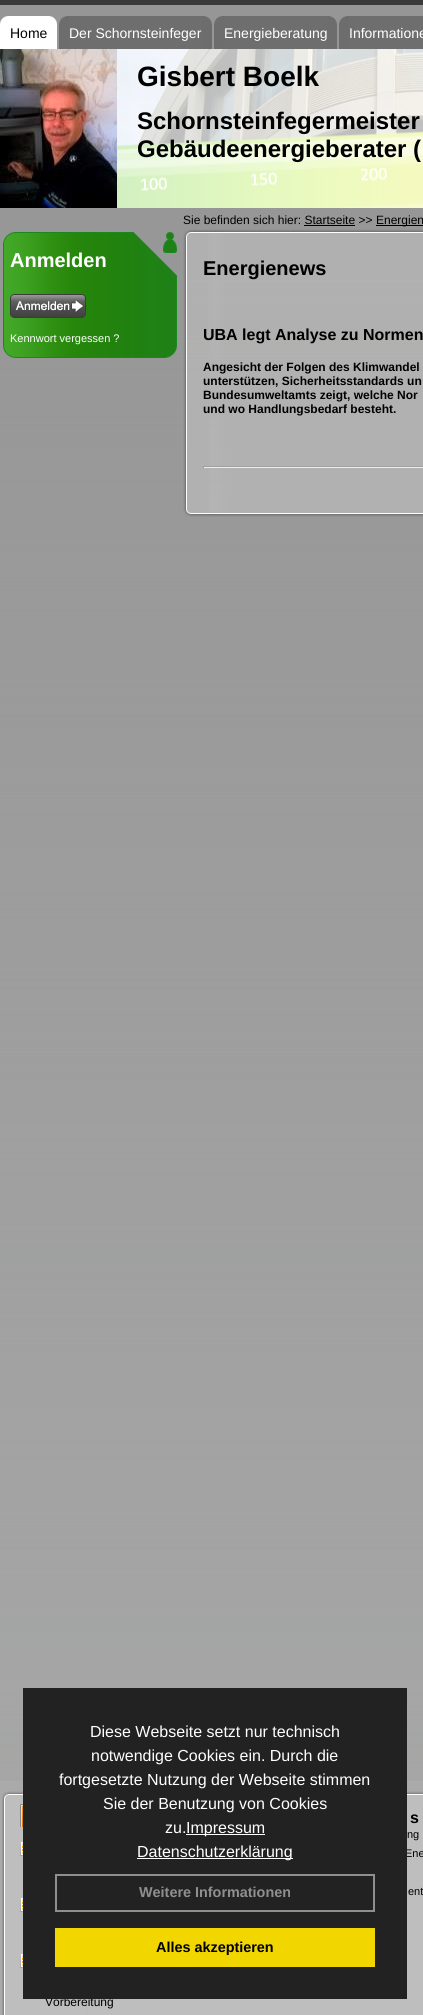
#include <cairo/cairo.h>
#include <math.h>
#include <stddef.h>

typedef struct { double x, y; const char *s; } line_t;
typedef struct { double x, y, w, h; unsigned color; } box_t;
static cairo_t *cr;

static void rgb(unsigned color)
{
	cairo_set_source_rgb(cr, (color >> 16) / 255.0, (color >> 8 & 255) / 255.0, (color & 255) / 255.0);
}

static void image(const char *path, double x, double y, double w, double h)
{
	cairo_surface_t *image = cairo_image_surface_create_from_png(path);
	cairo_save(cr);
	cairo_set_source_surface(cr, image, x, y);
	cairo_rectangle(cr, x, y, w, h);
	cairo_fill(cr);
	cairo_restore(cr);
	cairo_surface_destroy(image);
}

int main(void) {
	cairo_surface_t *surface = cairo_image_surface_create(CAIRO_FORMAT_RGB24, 423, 2015);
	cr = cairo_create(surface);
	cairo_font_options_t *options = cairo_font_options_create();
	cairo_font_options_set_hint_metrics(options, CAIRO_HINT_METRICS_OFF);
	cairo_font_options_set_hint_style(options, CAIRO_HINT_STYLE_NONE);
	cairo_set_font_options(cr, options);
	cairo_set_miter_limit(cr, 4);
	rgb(0xaaaaaa);
	cairo_paint(cr);
	image("img/1.png", 0, 5, 423, 1776);
	rgb(0x393939);
	cairo_rectangle(cr, 0, 0, 423, 5);
	cairo_fill(cr);
	image("img/2.png", 0, 16, 10, 33);
	rgb(0xffffff);
	cairo_rectangle(cr, 10, 16, 37, 33);
	cairo_fill(cr);
	image("img/3.png", 47, 16, 10, 33);
	image("img/4.png", 59, 16, 10, 33);
	rgb(0x6e6e6e);
	cairo_rectangle(cr, 69, 16, 133, 33);
	cairo_fill(cr);
	image("img/5.png", 202, 16, 10, 33);
	image("img/4.png", 214, 16, 10, 33);
	cairo_rectangle(cr, 224, 16, 103, 33);
	cairo_fill(cr);
	image("img/5.png", 327, 16, 10, 33);
	image("img/4.png", 339, 16, 10, 33);
	cairo_rectangle(cr, 349, 16, 74, 33);
	cairo_fill(cr);
	image("img/6.png", 117, 49, 306, 159);
	image("img/7.png", 0, 49, 117, 159);
	cairo_set_source_rgba(cr, 1, 1, 1, 0.75);
	cairo_rectangle(cr, 117, 49, 306, 159);
	cairo_fill(cr);
	rgb(0x000000);
	cairo_rectangle(cr, 376, 225, 47, 1);
	cairo_fill(cr);
	cairo_rectangle(cr, 304, 225, 51, 1);
	cairo_fill(cr);
	image("img/8.png", 3, 232, 174, 45);
	image("img/9.png", 3, 277, 174, 67);
	image("img/10.png", 10, 294, 76, 24);
	image("img/11.png", 3, 344, 174, 14);
	image("img/12.png", 183, 229, 240, 10);
	image("img/13.png", 183, 239, 240, 268);
	{
		static const box_t items[] = {
			{203, 466, 220, 1, 0x9f9f9f},
			{203, 467, 220, 1, 0xeeeeee},
			{203, 466, 1, 2, 0x9f9f9f},
		};
		for (size_t i = 0; i < sizeof items / sizeof *items; i++) {
			rgb(items[i].color);
			cairo_rectangle(cr, items[i].x, items[i].y, items[i].w, items[i].h);
			cairo_fill(cr);
		}
	}
	image("img/14.png", 183, 507, 240, 10);
	image("img/15.png", 2, 1791, 421, 13);
	image("img/16.png", 2, 1804, 421, 211);
	image("img/17.png", 20, 1804, 3, 23);
	image("img/18.png", 20, 1842, 3, 14);
	image("img/18.png", 20, 1898, 3, 14);
	image("img/18.png", 20, 1954, 3, 14);
	cairo_select_font_face(cr, "Liberation Sans", CAIRO_FONT_SLANT_NORMAL, CAIRO_FONT_WEIGHT_NORMAL);
	cairo_set_font_size(cr, 14);
	rgb(0x000000);
	cairo_move_to(cr, 10, 38);
	cairo_show_text(cr, "Home");
	rgb(0xffffff);
	{
		static const line_t items[] = {
			{69, 38, "Der Schornsteinfeger"},
			{224, 38, "Energieberatung"},
			{349, 38, "Informatione"},
		};
		for (size_t i = 0; i < sizeof items / sizeof *items; i++) {
			cairo_move_to(cr, items[i].x, items[i].y);
			cairo_show_text(cr, items[i].s);
		}
	}
	cairo_select_font_face(cr, "Liberation Sans", CAIRO_FONT_SLANT_NORMAL, CAIRO_FONT_WEIGHT_BOLD);
	cairo_set_font_size(cr, 28);
	rgb(0x000000);
	cairo_move_to(cr, 137, 86);
	cairo_show_text(cr, "Gisbert Boelk");
	cairo_set_font_size(cr, 24);
	cairo_move_to(cr, 137, 129);
	cairo_show_text(cr, "Schornsteinfegermeister");
	cairo_move_to(cr, 137, 157);
	cairo_show_text(cr, "Gebäudeenergieberater (");
	cairo_select_font_face(cr, "Liberation Sans", CAIRO_FONT_SLANT_NORMAL, CAIRO_FONT_WEIGHT_NORMAL);
	cairo_set_font_size(cr, 12);
	cairo_move_to(cr, 183, 224);
	cairo_show_text(cr, "Sie befinden sich hier: Startseite >>");
	cairo_move_to(cr, 376, 224);
	cairo_show_text(cr, "Energien");
	cairo_select_font_face(cr, "Liberation Sans", CAIRO_FONT_SLANT_NORMAL, CAIRO_FONT_WEIGHT_BOLD);
	cairo_set_font_size(cr, 20);
	rgb(0xffffff);
	cairo_move_to(cr, 10, 267);
	cairo_show_text(cr, "Anmelden");
	cairo_select_font_face(cr, "Liberation Sans", CAIRO_FONT_SLANT_NORMAL, CAIRO_FONT_WEIGHT_NORMAL);
	cairo_set_font_size(cr, 11);
	cairo_move_to(cr, 10, 342);
	cairo_show_text(cr, "Kennwort vergessen ?");
	cairo_select_font_face(cr, "Liberation Sans", CAIRO_FONT_SLANT_NORMAL, CAIRO_FONT_WEIGHT_BOLD);
	cairo_set_font_size(cr, 20);
	rgb(0x000000);
	cairo_move_to(cr, 203, 275);
	cairo_show_text(cr, "Energienews");
	cairo_set_font_size(cr, 16);
	cairo_move_to(cr, 203, 340);
	cairo_show_text(cr, "UBA legt Analyse zu Normen");
	cairo_set_font_size(cr, 12);
	{
		static const line_t items[] = {
			{203, 371, "Angesicht der Folgen des Klimwandel"},
			{203, 385, "unterstützen, Sicherheitsstandards un"},
			{203, 399, "Bundesumweltamts zeigt, welche Nor"},
			{203, 413, "und wo Handlungsbedarf besteht."},
		};
		for (size_t i = 0; i < sizeof items / sizeof *items; i++) {
			cairo_move_to(cr, items[i].x, items[i].y);
			cairo_show_text(cr, items[i].s);
		}
	}
	cairo_set_font_size(cr, 16);
	cairo_move_to(cr, 410, 1823);
	cairo_show_text(cr, "s");
	cairo_select_font_face(cr, "Liberation Sans", CAIRO_FONT_SLANT_NORMAL, CAIRO_FONT_WEIGHT_NORMAL);
	cairo_set_font_size(cr, 11);
	{
		static const line_t items[] = {
			{407, 1838, "ng"},
			{405, 1857, "Ene"},
			{408, 1895, "ent"},
		};
		for (size_t i = 0; i < sizeof items / sizeof *items; i++) {
			cairo_move_to(cr, items[i].x, items[i].y);
			cairo_show_text(cr, items[i].s);
		}
	}
	cairo_set_font_size(cr, 12);
	cairo_move_to(cr, 45, 2006);
	cairo_show_text(cr, "Vorbereitung");
	rgb(0x222222);
	cairo_rectangle(cr, 23, 1688, 384, 311);
	cairo_fill(cr);
	cairo_set_font_size(cr, 16);
	rgb(0xffffff);
	{
		static const line_t items[] = {
			{90, 1737, "Diese Webseite setzt nur technisch"},
			{91, 1761, "notwendige Cookies ein. Durch die"},
			{59, 1785, "fortgesetzte Nutzung der Webseite stimmen"},
			{103, 1809, "Sie der Benutzung von Cookies"},
			{165, 1833, "zu."},
		};
		for (size_t i = 0; i < sizeof items / sizeof *items; i++) {
			cairo_move_to(cr, items[i].x, items[i].y);
			cairo_show_text(cr, items[i].s);
		}
	}
	cairo_rectangle(cr, 186, 1834, 79, 1);
	cairo_fill(cr);
	cairo_move_to(cr, 186, 1833);
	cairo_show_text(cr, "Impressum");
	cairo_rectangle(cr, 137, 1858, 156, 1);
	cairo_fill(cr);
	cairo_move_to(cr, 137, 1857);
	cairo_show_text(cr, "Datenschutzerklärung");
	cairo_rectangle(cr, 56, 1875, 318, 36);
	rgb(0x8f8f8f);
	cairo_stroke(cr);
	cairo_select_font_face(cr, "Liberation Sans", CAIRO_FONT_SLANT_NORMAL, CAIRO_FONT_WEIGHT_BOLD);
	cairo_set_font_size(cr, 14.4);
	cairo_move_to(cr, 139, 1897);
	cairo_show_text(cr, "Weitere Informationen");
	rgb(0xf1d600);
	cairo_rectangle(cr, 55, 1928, 320, 39);
	cairo_fill(cr);
	rgb(0x000000);
	cairo_move_to(cr, 156, 1952);
	cairo_show_text(cr, "Alles akzeptieren");
	cairo_surface_write_to_png(surface, "page.png");
	cairo_font_options_destroy(options);
	cairo_destroy(cr);
	cairo_surface_destroy(surface);
	return 0;
}
